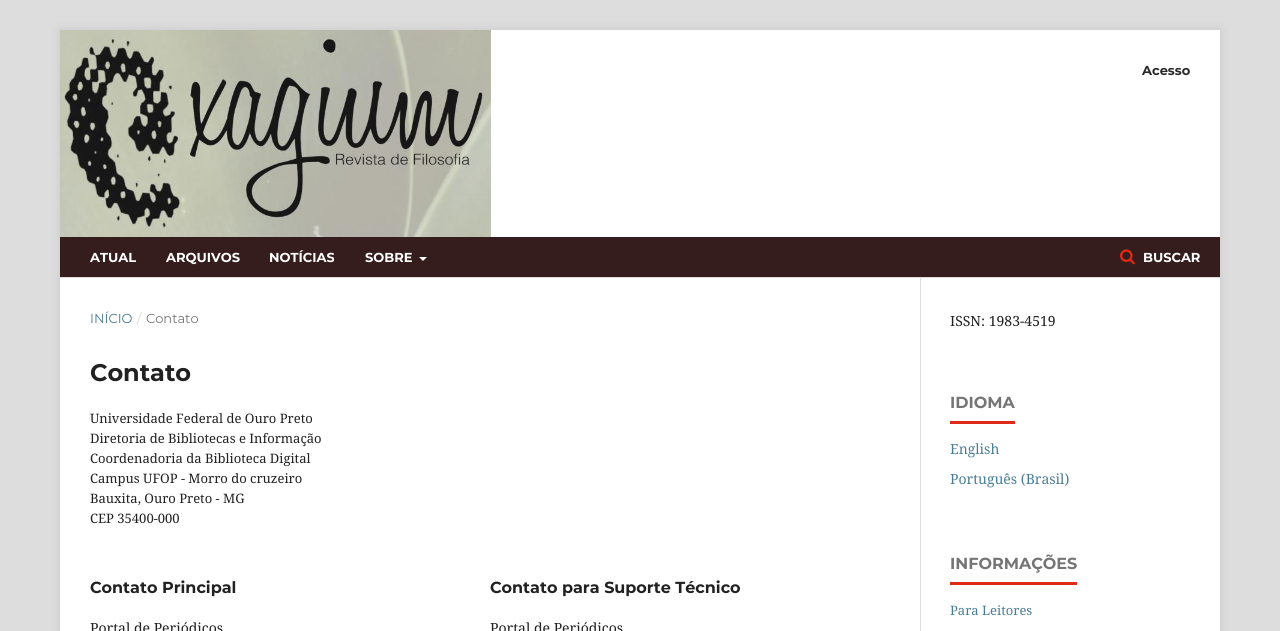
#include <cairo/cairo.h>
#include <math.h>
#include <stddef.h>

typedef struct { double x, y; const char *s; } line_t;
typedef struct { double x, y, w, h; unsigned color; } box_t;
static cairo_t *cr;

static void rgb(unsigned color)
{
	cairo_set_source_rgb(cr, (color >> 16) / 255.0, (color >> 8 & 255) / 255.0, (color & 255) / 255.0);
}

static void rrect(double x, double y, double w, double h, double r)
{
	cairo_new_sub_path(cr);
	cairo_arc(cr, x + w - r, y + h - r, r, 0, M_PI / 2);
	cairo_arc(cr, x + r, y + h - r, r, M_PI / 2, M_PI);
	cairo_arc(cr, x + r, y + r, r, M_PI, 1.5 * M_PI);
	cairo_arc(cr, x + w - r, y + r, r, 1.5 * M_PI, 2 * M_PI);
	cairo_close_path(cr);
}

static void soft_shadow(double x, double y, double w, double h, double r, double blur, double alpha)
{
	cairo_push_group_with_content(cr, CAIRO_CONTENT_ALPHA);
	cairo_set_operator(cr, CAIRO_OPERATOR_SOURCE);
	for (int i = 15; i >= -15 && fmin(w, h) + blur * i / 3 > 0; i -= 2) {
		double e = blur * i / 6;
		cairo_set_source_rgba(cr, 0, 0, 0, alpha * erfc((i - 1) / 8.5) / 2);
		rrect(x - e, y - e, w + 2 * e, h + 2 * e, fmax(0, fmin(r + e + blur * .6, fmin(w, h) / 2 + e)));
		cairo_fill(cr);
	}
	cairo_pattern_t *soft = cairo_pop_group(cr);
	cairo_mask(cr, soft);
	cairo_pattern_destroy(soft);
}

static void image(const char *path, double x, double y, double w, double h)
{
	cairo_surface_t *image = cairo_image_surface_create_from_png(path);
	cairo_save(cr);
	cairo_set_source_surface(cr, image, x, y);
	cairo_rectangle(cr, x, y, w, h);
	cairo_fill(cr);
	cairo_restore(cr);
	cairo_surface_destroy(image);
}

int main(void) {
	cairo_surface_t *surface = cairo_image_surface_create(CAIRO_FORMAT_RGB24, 1280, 631);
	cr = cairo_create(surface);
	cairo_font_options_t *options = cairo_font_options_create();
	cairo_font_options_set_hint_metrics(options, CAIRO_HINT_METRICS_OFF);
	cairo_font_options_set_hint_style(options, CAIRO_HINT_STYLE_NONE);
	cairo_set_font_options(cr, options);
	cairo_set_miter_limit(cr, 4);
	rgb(0xdddddd);
	cairo_paint(cr);
	rgb(0x000000);
	soft_shadow(60, 30, 1160, 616, 0, 5, 0.1);
	rgb(0xffffff);
	cairo_rectangle(cr, 60, 30, 1160, 601);
	cairo_fill(cr);
	rgb(0xdddddd);
	cairo_rectangle(cr, 60, 277, 1160, 1);
	cairo_fill(cr);
	image("img/1.png", 60, 30, 431, 207);
	rgb(0x351d1d);
	cairo_rectangle(cr, 60, 237, 1160, 40);
	cairo_fill(cr);
	rgb(0xffffff);
	cairo_new_path(cr);
	cairo_move_to(cr, 419, 257);
	cairo_line_to(cr, 427, 257);
	cairo_line_to(cr, 423, 261);
	cairo_close_path(cr);
	cairo_fill(cr);
	image("img/2.png", 1120, 249, 15, 16);
	{
		static const box_t items[] = {
			{920, 278, 1, 353, 0xdddddd},
			{950, 421, 65, 3, 0xdf2a17},
			{950, 582, 127, 3, 0xdf2a17},
		};
		for (size_t i = 0; i < sizeof items / sizeof *items; i++) {
			rgb(items[i].color);
			cairo_rectangle(cr, items[i].x, items[i].y, items[i].w, items[i].h);
			cairo_fill(cr);
		}
	}
	cairo_select_font_face(cr, "Montserrat", CAIRO_FONT_SLANT_NORMAL, CAIRO_FONT_WEIGHT_BOLD);
	cairo_set_font_size(cr, 13);
	rgb(0x292929);
	cairo_move_to(cr, 1142, 75);
	cairo_show_text(cr, "Acesso");
	rgb(0xffffff);
	{
		static const line_t items[] = {
			{90, 262, "ATUAL"},
			{166, 262, "ARQUIVOS"},
			{269, 262, "NOTÍCIAS"},
			{365, 262, "SOBRE"},
			{1143, 262, "BUSCAR"},
		};
		for (size_t i = 0; i < sizeof items / sizeof *items; i++) {
			cairo_move_to(cr, items[i].x, items[i].y);
			cairo_show_text(cr, items[i].s);
		}
	}
	cairo_select_font_face(cr, "Montserrat", CAIRO_FONT_SLANT_NORMAL, CAIRO_FONT_WEIGHT_NORMAL);
	rgb(0x4b7d92);
	cairo_move_to(cr, 90, 323);
	cairo_show_text(cr, "INÍCIO");
	rgb(0xd6d6d6);
	cairo_move_to(cr, 137, 323);
	cairo_show_text(cr, "/");
	rgb(0x757575);
	cairo_move_to(cr, 146, 323);
	cairo_show_text(cr, "Contato");
	cairo_select_font_face(cr, "Montserrat", CAIRO_FONT_SLANT_NORMAL, CAIRO_FONT_WEIGHT_BOLD);
	cairo_set_font_size(cr, 24);
	rgb(0x212121);
	cairo_move_to(cr, 90, 381);
	cairo_show_text(cr, "Contato");
	cairo_select_font_face(cr, "Noto Serif", CAIRO_FONT_SLANT_NORMAL, CAIRO_FONT_WEIGHT_NORMAL);
	cairo_set_font_size(cr, 13);
	{
		static const line_t items[] = {
			{90, 423, "Universidade Federal de Ouro Preto"},
			{90, 443, "Diretoria de Bibliotecas e Informação"},
			{90, 463, "Coordenadoria da Biblioteca Digital"},
			{90, 483, "Campus UFOP - Morro do cruzeiro"},
			{90, 503, "Bauxita, Ouro Preto - MG"},
			{90, 523, "CEP 35400-000"},
		};
		for (size_t i = 0; i < sizeof items / sizeof *items; i++) {
			cairo_move_to(cr, items[i].x, items[i].y);
			cairo_show_text(cr, items[i].s);
		}
	}
	cairo_select_font_face(cr, "Montserrat", CAIRO_FONT_SLANT_NORMAL, CAIRO_FONT_WEIGHT_BOLD);
	cairo_set_font_size(cr, 16);
	cairo_move_to(cr, 90, 593);
	cairo_show_text(cr, "Contato Principal");
	cairo_select_font_face(cr, "Noto Serif", CAIRO_FONT_SLANT_NORMAL, CAIRO_FONT_WEIGHT_NORMAL);
	cairo_set_font_size(cr, 14);
	cairo_move_to(cr, 90, 633);
	cairo_show_text(cr, "Portal de Periódicos");
	cairo_select_font_face(cr, "Montserrat", CAIRO_FONT_SLANT_NORMAL, CAIRO_FONT_WEIGHT_BOLD);
	cairo_set_font_size(cr, 16);
	cairo_move_to(cr, 490, 593);
	cairo_show_text(cr, "Contato para Suporte Técnico");
	cairo_select_font_face(cr, "Noto Serif", CAIRO_FONT_SLANT_NORMAL, CAIRO_FONT_WEIGHT_NORMAL);
	cairo_set_font_size(cr, 14);
	cairo_move_to(cr, 490, 633);
	cairo_show_text(cr, "Portal de Periódicos");
	cairo_move_to(cr, 950, 326);
	cairo_show_text(cr, "ISSN: 1983-4519");
	cairo_select_font_face(cr, "Montserrat", CAIRO_FONT_SLANT_NORMAL, CAIRO_FONT_WEIGHT_BOLD);
	cairo_set_font_size(cr, 16);
	rgb(0x757575);
	cairo_move_to(cr, 950, 408);
	cairo_show_text(cr, "IDIOMA");
	cairo_select_font_face(cr, "Noto Serif", CAIRO_FONT_SLANT_NORMAL, CAIRO_FONT_WEIGHT_NORMAL);
	cairo_set_font_size(cr, 14);
	rgb(0x4b7d92);
	cairo_move_to(cr, 950, 454);
	cairo_show_text(cr, "English");
	cairo_move_to(cr, 950, 484);
	cairo_show_text(cr, "Português (Brasil)");
	cairo_select_font_face(cr, "Montserrat", CAIRO_FONT_SLANT_NORMAL, CAIRO_FONT_WEIGHT_BOLD);
	cairo_set_font_size(cr, 16);
	rgb(0x757575);
	cairo_move_to(cr, 950, 569);
	cairo_show_text(cr, "INFORMAÇÕES");
	cairo_select_font_face(cr, "Noto Serif", CAIRO_FONT_SLANT_NORMAL, CAIRO_FONT_WEIGHT_NORMAL);
	cairo_set_font_size(cr, 13);
	rgb(0x4b7d92);
	cairo_move_to(cr, 950, 615);
	cairo_show_text(cr, "Para Leitores");
	cairo_surface_write_to_png(surface, "page.png");
	cairo_font_options_destroy(options);
	cairo_destroy(cr);
	cairo_surface_destroy(surface);
	return 0;
}
